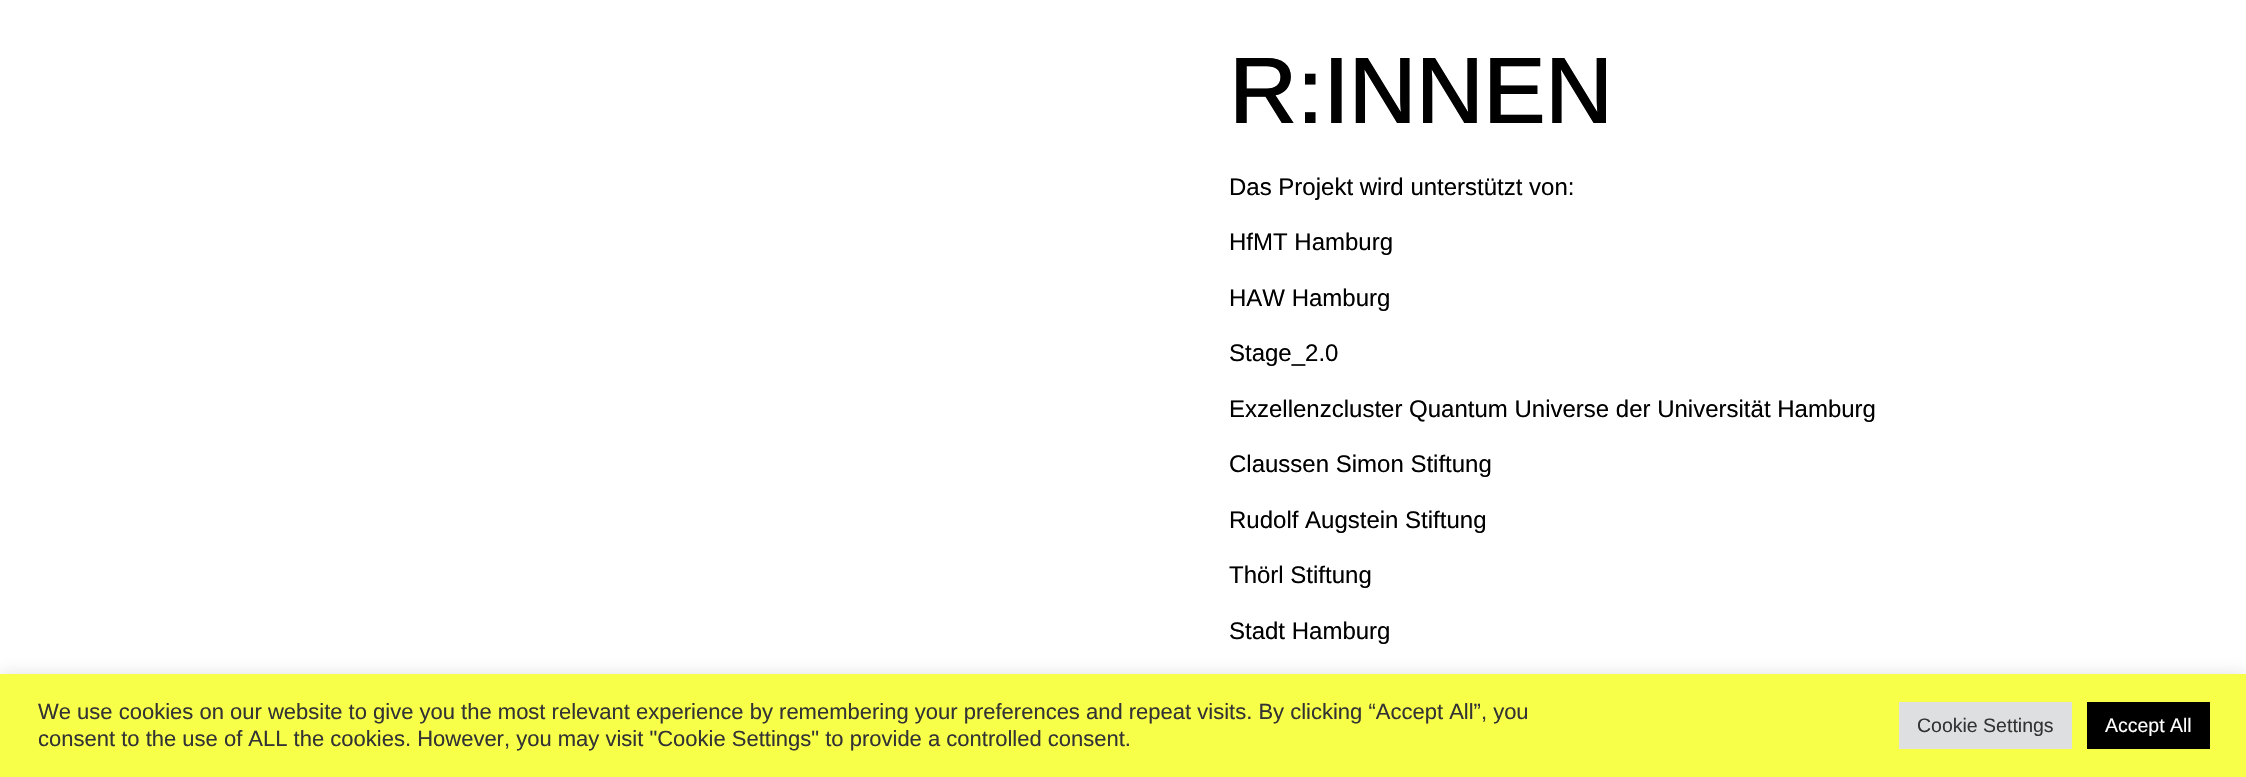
#include "include/core/SkBlurTypes.h"
#include "include/core/SkCanvas.h"
#include "include/core/SkData.h"
#include "include/core/SkFont.h"
#include "include/core/SkFontMgr.h"
#include "include/core/SkImage.h"
#include "include/core/SkMaskFilter.h"
#include "include/core/SkPaint.h"
#include "include/core/SkPathBuilder.h"
#include "include/core/SkTextBlob.h"
#include "include/effects/SkDashPathEffect.h"
#include "include/effects/SkGradientShader.h"
#include "include/utils/SkParsePath.h"

extern sk_sp<SkFontMgr> fontMgr;

void draw(SkCanvas* canvas) {
  SkPaint p;
  p.setAntiAlias(true);
  auto spacedText = [&](const char* s, float x, float y, const SkFont& font, const SkPaint& ink, float letter, float word) {
    std::vector<SkGlyphID> glyphs(font.countText(s, strlen(s), SkTextEncoding::kUTF8));
    std::vector<float> xs(glyphs.size());
    font.textToGlyphs(s, strlen(s), SkTextEncoding::kUTF8, glyphs);
    font.getXPos(glyphs, xs, x);
    float extra = 0;
    for (size_t i = 0; i < glyphs.size(); i++) {
      xs[i] += extra;
      extra += letter + word * (glyphs[i] == font.unicharToGlyph(' '));
    }
    canvas->drawTextBlob(SkTextBlob::MakeFromPosHGlyphs(glyphs, xs, y, font), 0, 0, ink);
  };
  canvas->clear(SK_ColorWHITE);
  p.setColor(SkColorSetARGB(77, 172, 171, 171));
  p.setMaskFilter(SkMaskFilter::MakeBlur(kNormal_SkBlurStyle, 7.5f));
  canvas->drawRect(SkRect::MakeLTRB(0, 672, 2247, 776), p);
  p.setMaskFilter(nullptr);
  p.setColor(SkColorSetRGB(248, 255, 73));
  canvas->drawRect(SkRect::MakeLTRB(0, 674, 2246, 777), p);
  p.setColor(SkColorSetRGB(222, 223, 224));
  canvas->drawRect(SkRect::MakeLTRB(1899, 702, 2072, 749), p);
  p.setColor(SK_ColorBLACK);
  canvas->drawRect(SkRect::MakeLTRB(2087, 702, 2210, 749), p);
  SkFont font1(fontMgr->matchFamilyStyle("Arimo", SkFontStyle(500, SkFontStyle::kNormal_Width, SkFontStyle::kUpright_Slant)), 94.5f);
  font1.setSubpixel(true);
  spacedText("R:INNEN", 1229, 123, font1, p, -1, 0);
  SkFont font2(fontMgr->matchFamilyStyle("Arimo", SkFontStyle::Normal()), 24);
  font2.setSubpixel(true);
  canvas->drawString("Das Projekt wird unterstützt von:", 1229, 195, font2, p);
  canvas->drawString("HfMT Hamburg", 1229, 250, font2, p);
  canvas->drawString("HAW Hamburg", 1229, 306, font2, p);
  canvas->drawString("Stage_2.0", 1229, 361, font2, p);
  canvas->drawString("Exzellenzcluster Quantum Universe der Universität Hamburg", 1229, 417, font2, p);
  canvas->drawString("Claussen Simon Stiftung", 1229, 472, font2, p);
  canvas->drawString("Rudolf Augstein Stiftung", 1229, 528, font2, p);
  canvas->drawString("Thörl Stiftung", 1229, 583, font2, p);
  canvas->drawString("Stadt Hamburg", 1229, 639, font2, p);
  SkFont font3(fontMgr->matchFamilyStyle("Arimo", SkFontStyle::Normal()), 22);
  font3.setSubpixel(true);
  p.setColor(SkColorSetRGB(51, 51, 51));
  canvas->drawString("We use cookies on our website to give you the most relevant experience by remembering your preferences and repeat visits. By clicking “Accept All”, you", 38, 719, font3, p);
  canvas->drawString("consent to the use of ALL the cookies. However, you may visit \"Cookie Settings\" to provide a controlled consent.", 38, 746, font3, p);
  SkFont font4(fontMgr->matchFamilyStyle("Arimo", SkFontStyle::Normal()), 19.5f);
  font4.setSubpixel(true);
  canvas->drawString("Cookie Settings", 1917, 732, font4, p);
  p.setColor(SK_ColorWHITE);
  canvas->drawString("Accept All", 2105, 732, font4, p);
}
